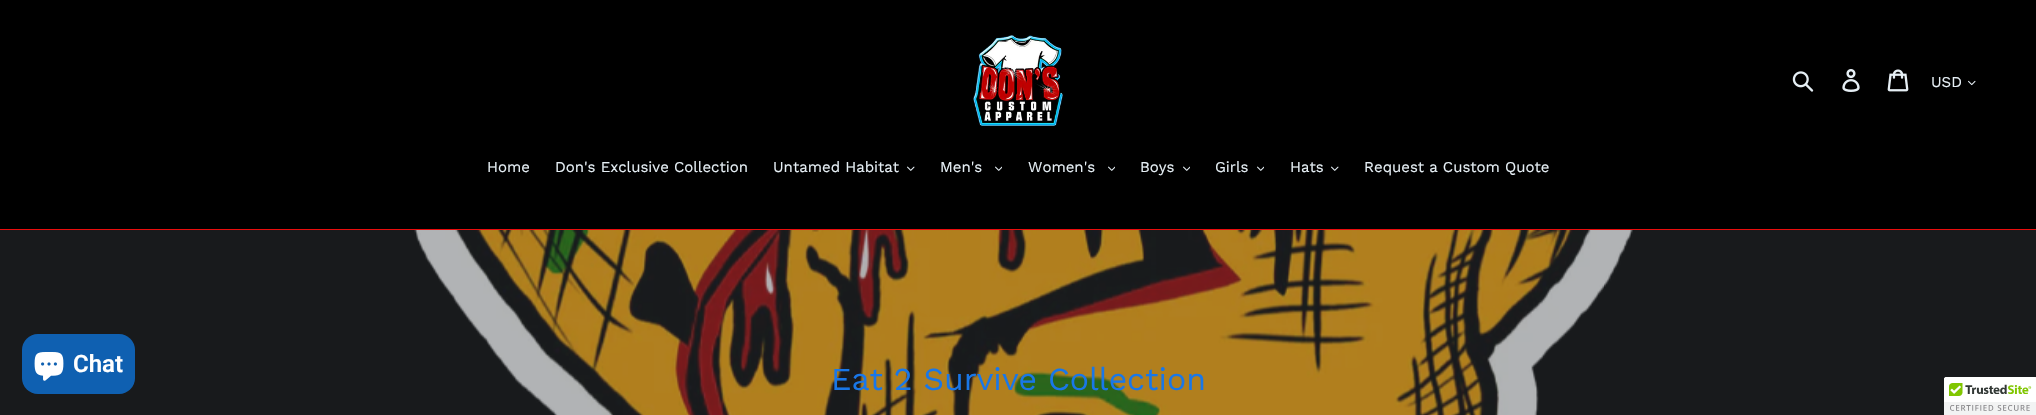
#include "include/core/SkBlurTypes.h"
#include "include/core/SkCanvas.h"
#include "include/core/SkData.h"
#include "include/core/SkFont.h"
#include "include/core/SkFontMgr.h"
#include "include/core/SkImage.h"
#include "include/core/SkMaskFilter.h"
#include "include/core/SkPaint.h"
#include "include/core/SkPathBuilder.h"
#include "include/core/SkTextBlob.h"
#include "include/effects/SkDashPathEffect.h"
#include "include/effects/SkGradientShader.h"
#include "include/utils/SkParsePath.h"

extern sk_sp<SkFontMgr> fontMgr;

void draw(SkCanvas* canvas) {
  SkPaint p;
  p.setAntiAlias(true);
  canvas->clear(SK_ColorBLACK);
  p.setColor(SkColorSetRGB(24, 26, 28));
  canvas->drawRect(SkRect::MakeLTRB(0, 230, 2036, 415), p);
  canvas->drawImageRect(SkImages::DeferredFromEncodedData(SkData::MakeFromFileName("images/1.png")), SkRect::MakeLTRB(972, 34, 1064, 126), SkSamplingOptions());
  canvas->drawImageRect(SkImages::DeferredFromEncodedData(SkData::MakeFromFileName("images/2.png")), SkRect::MakeLTRB(1792, 71, 1814, 92), SkSamplingOptions());
  canvas->drawImageRect(SkImages::DeferredFromEncodedData(SkData::MakeFromFileName("images/3.png")), SkRect::MakeLTRB(1842, 69, 1860, 92), SkSamplingOptions());
  canvas->drawImageRect(SkImages::DeferredFromEncodedData(SkData::MakeFromFileName("images/4.png")), SkRect::MakeLTRB(1887, 69, 1909, 92), SkSamplingOptions());
  canvas->drawImageRect(SkImages::DeferredFromEncodedData(SkData::MakeFromFileName("images/5.png")), SkRect::MakeLTRB(1968, 80, 1976, 86), SkSamplingOptions());
  p.setColor(SkColorSetRGB(233, 13, 13));
  canvas->drawRect(SkRect::MakeLTRB(0, 229, 2036, 230), p);
  canvas->drawImageRect(SkImages::DeferredFromEncodedData(SkData::MakeFromFileName("images/6.png")), SkRect::MakeLTRB(907, 166, 915, 171), SkSamplingOptions());
  canvas->drawImageRect(SkImages::DeferredFromEncodedData(SkData::MakeFromFileName("images/7.png")), SkRect::MakeLTRB(995, 166, 1002, 171), SkSamplingOptions());
  canvas->drawImageRect(SkImages::DeferredFromEncodedData(SkData::MakeFromFileName("images/7.png")), SkRect::MakeLTRB(1108, 166, 1115, 171), SkSamplingOptions());
  canvas->drawImageRect(SkImages::DeferredFromEncodedData(SkData::MakeFromFileName("images/7.png")), SkRect::MakeLTRB(1183, 166, 1190, 171), SkSamplingOptions());
  canvas->drawImageRect(SkImages::DeferredFromEncodedData(SkData::MakeFromFileName("images/7.png")), SkRect::MakeLTRB(1257, 166, 1264, 171), SkSamplingOptions());
  canvas->drawImageRect(SkImages::DeferredFromEncodedData(SkData::MakeFromFileName("images/6.png")), SkRect::MakeLTRB(1331, 166, 1339, 171), SkSamplingOptions());
  p.setColor(SkColorSetRGB(15, 96, 177));
  canvas->drawRoundRect(SkRect::MakeLTRB(22, 334, 135, 394), 16, 16, p);
  canvas->drawImageRect(SkImages::DeferredFromEncodedData(SkData::MakeFromFileName("images/8.png")), SkRect::MakeLTRB(34, 352, 64, 381), SkSamplingOptions());
  canvas->drawImageRect(SkImages::DeferredFromEncodedData(SkData::MakeFromFileName("images/9.png")), SkRect::MakeLTRB(414, 230, 1633, 415), SkSamplingOptions());
  p.setColor(SK_ColorWHITE);
  canvas->drawPath(SkPathBuilder().moveTo(1946, 377).lineTo(2036, 377).lineTo(2036, 415).lineTo(1944, 415).lineTo(1944, 379).cubicTo(1944, 378, 1945, 377, 1946, 377).close().detach(), p);
  canvas->drawImageRect(SkImages::DeferredFromEncodedData(SkData::MakeFromFileName("images/10.png")), SkRect::MakeLTRB(1944, 377, 2036, 415), SkSamplingOptions());
  SkFont font1(fontMgr->matchFamilyStyle("Work Sans", SkFontStyle::Normal()), 15);
  font1.setSubpixel(true);
  p.setColor(SkColorSetRGB(230, 239, 245));
  canvas->drawString("USD", 1931, 87, font1, p);
  canvas->drawString("Home", 487, 172, font1, p);
  canvas->drawString("Don's Exclusive Collection", 555, 172, font1, p);
  canvas->drawString("Untamed Habitat", 773, 172, font1, p);
  canvas->drawString("Men's", 940, 172, font1, p);
  canvas->drawString("Women's", 1028, 172, font1, p);
  canvas->drawString("Boys", 1140, 172, font1, p);
  canvas->drawString("Girls", 1215, 172, font1, p);
  canvas->drawString("Hats", 1290, 172, font1, p);
  canvas->drawString("Request a Custom Quote", 1364, 172, font1, p);
  SkFont font2(fontMgr->matchFamilyStyle("Roboto", SkFontStyle(600, SkFontStyle::kNormal_Width, SkFontStyle::kUpright_Slant)), 24);
  font2.setSubpixel(true);
  p.setColor(SK_ColorWHITE);
  canvas->drawString("Chat", 73, 372, font2, p);
  SkFont font3(fontMgr->matchFamilyStyle("Work Sans", SkFontStyle::Normal()), 32);
  font3.setSubpixel(true);
  p.setColor(SkColorSetRGB(25, 119, 232));
  canvas->drawString("Eat 2 Survive Collection", 831, 390, font3, p);
}
